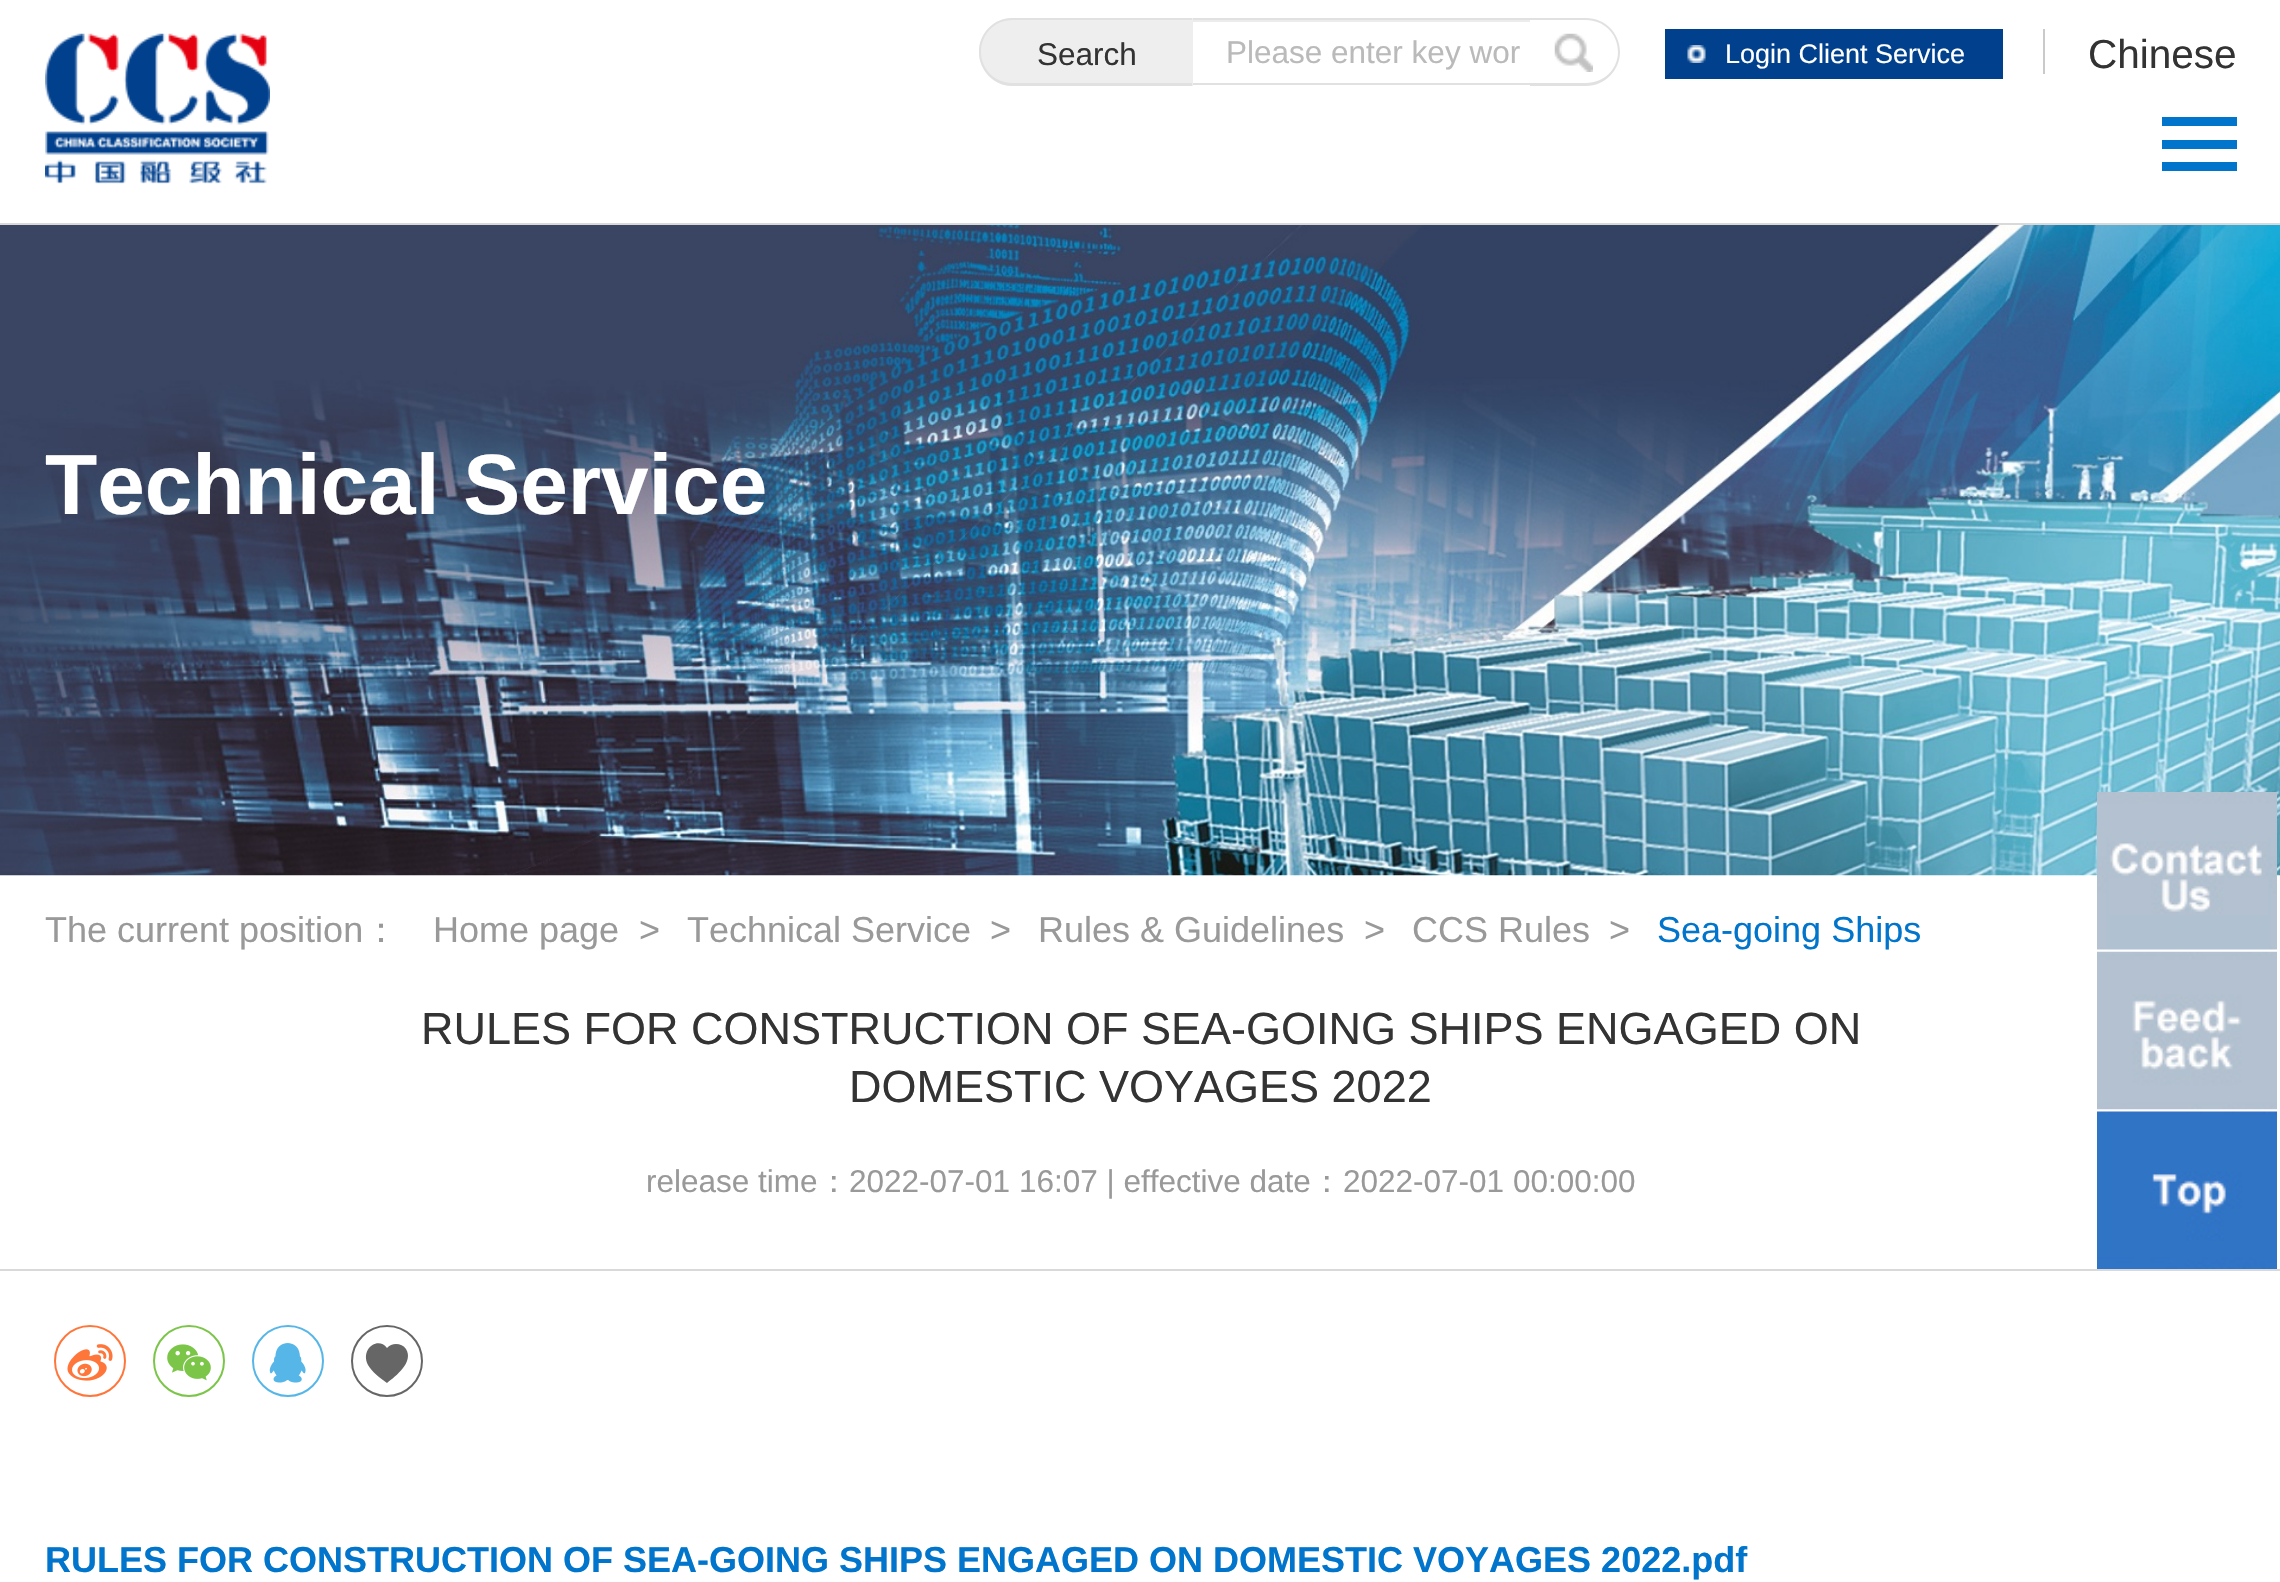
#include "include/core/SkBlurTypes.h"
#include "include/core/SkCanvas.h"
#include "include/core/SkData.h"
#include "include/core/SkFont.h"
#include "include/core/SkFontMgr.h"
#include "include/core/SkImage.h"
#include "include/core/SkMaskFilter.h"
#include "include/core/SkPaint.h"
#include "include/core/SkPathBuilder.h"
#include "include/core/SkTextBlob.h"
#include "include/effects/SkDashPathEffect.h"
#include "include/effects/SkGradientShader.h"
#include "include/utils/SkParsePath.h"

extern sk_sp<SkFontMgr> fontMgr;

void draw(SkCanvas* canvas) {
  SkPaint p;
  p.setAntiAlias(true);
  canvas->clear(SK_ColorWHITE);
  p.setColor(SkColorSetRGB(217, 217, 217));
  canvas->drawRect(SkRect::MakeLTRB(0, 223, 2280, 225), p);
  canvas->drawImageRect(SkImages::DeferredFromEncodedData(SkData::MakeFromFileName("images/1.png")), SkRect::MakeLTRB(45, 33, 270, 184), SkSamplingOptions());
  p.setColor(SkColorSetRGB(238, 238, 238));
  canvas->drawPath(SkPathBuilder().moveTo(1013, 18).lineTo(1193, 18).lineTo(1193, 86).lineTo(1013, 86).cubicTo(994, 86, 979, 71, 979, 52).cubicTo(979, 33, 994, 18, 1013, 18).close().detach(), p);
  p.setColor(SkColorSetRGB(225, 225, 225));
  canvas->drawPath(SkPathBuilder(SkPathFillType::kEvenOdd).moveTo(1012, 18).lineTo(1192, 18).lineTo(1192, 86).lineTo(1012, 86).cubicTo(994, 86, 979, 70, 979, 52).cubicTo(979, 33, 994, 18, 1012, 18).close().moveTo(1012, 20).lineTo(1192, 20).lineTo(1192, 83).lineTo(1012, 83).cubicTo(995, 83, 981, 69, 981, 52).cubicTo(981, 34, 995, 20, 1012, 20).close().detach(), p);
  p.setColor(SkColorSetRGB(236, 236, 236));
  canvas->drawRect(SkRect::MakeLTRB(1193, 20, 1530, 22), p);
  p.setColor(SkColorSetRGB(225, 225, 225));
  canvas->drawRect(SkRect::MakeLTRB(1193, 18, 1530, 20), p);
  canvas->drawRect(SkRect::MakeLTRB(1193, 83, 1530, 85), p);
  canvas->drawImageRect(SkImages::DeferredFromEncodedData(SkData::MakeFromFileName("images/2.png")), SkRect::MakeLTRB(1554, 33, 1593, 72), SkSamplingOptions());
  canvas->drawPath(SkPathBuilder(SkPathFillType::kEvenOdd).moveTo(1530, 18).lineTo(1586, 18).cubicTo(1605, 18, 1620, 33, 1620, 52).cubicTo(1620, 70, 1605, 86, 1586, 86).lineTo(1530, 86).close().moveTo(1530, 20).lineTo(1586, 20).cubicTo(1604, 20, 1618, 34, 1618, 52).cubicTo(1618, 69, 1604, 83, 1586, 83).lineTo(1530, 83).close().detach(), p);
  p.setColor(SkColorSetRGB(0, 64, 140));
  canvas->drawRect(SkRect::MakeLTRB(1665, 29, 2003, 79), p);
  canvas->drawImageRect(SkImages::DeferredFromEncodedData(SkData::MakeFromFileName("images/3.png")), SkRect::MakeLTRB(1687, 45, 1706, 63), SkSamplingOptions());
  p.setColor(SkColorSetRGB(202, 202, 202));
  canvas->drawRect(SkRect::MakeLTRB(2043, 29, 2045, 74), p);
  p.setColor(SkColorSetRGB(0, 117, 203));
  canvas->drawRect(SkRect::MakeLTRB(2162, 140, 2237, 149), p);
  canvas->drawRect(SkRect::MakeLTRB(2162, 117, 2237, 126), p);
  canvas->drawRect(SkRect::MakeLTRB(2162, 162, 2237, 171), p);
  canvas->drawImageRect(SkImages::DeferredFromEncodedData(SkData::MakeFromFileName("images/4.png")), SkRect::MakeLTRB(0, 225, 2280, 876), SkSamplingOptions());
  canvas->drawImageRect(SkImages::DeferredFromEncodedData(SkData::MakeFromFileName("images/5.png")), SkRect::MakeLTRB(2097, 792, 2277, 950), SkSamplingOptions());
  canvas->drawImageRect(SkImages::DeferredFromEncodedData(SkData::MakeFromFileName("images/6.png")), SkRect::MakeLTRB(2097, 951, 2277, 1110), SkSamplingOptions());
  canvas->drawImageRect(SkImages::DeferredFromEncodedData(SkData::MakeFromFileName("images/7.png")), SkRect::MakeLTRB(2097, 1111, 2277, 1269), SkSamplingOptions());
  p.setColor(SkColorSetRGB(217, 217, 217));
  canvas->drawRect(SkRect::MakeLTRB(0, 1269, 2280, 1271), p);
  p.setStyle(SkPaint::kStroke_Style);
  p.setStrokeWidth(2);
  p.setColor(SkColorSetRGB(255, 118, 59));
  canvas->drawCircle(90, 1361, 35, p);
  canvas->drawImageRect(SkImages::DeferredFromEncodedData(SkData::MakeFromFileName("images/8.png")), SkRect::MakeLTRB(67, 1344, 113, 1381), SkSamplingOptions());
  p.setColor(SkColorSetRGB(123, 197, 73));
  canvas->drawCircle(189, 1361, 35, p);
  canvas->drawImageRect(SkImages::DeferredFromEncodedData(SkData::MakeFromFileName("images/9.png")), SkRect::MakeLTRB(167, 1344, 211, 1381), SkSamplingOptions());
  p.setColor(SkColorSetRGB(86, 182, 231));
  canvas->drawCircle(288, 1361, 35, p);
  canvas->drawImageRect(SkImages::DeferredFromEncodedData(SkData::MakeFromFileName("images/10.png")), SkRect::MakeLTRB(269, 1343, 306, 1383), SkSamplingOptions());
  p.setColor(SkColorSetRGB(102, 102, 102));
  canvas->drawCircle(387, 1361, 35, p);
  p.setStyle(SkPaint::kFill_Style);
  canvas->drawPath(SkPathBuilder().moveTo(406, 1349).cubicTo(402, 1343, 392, 1342, 387, 1348).cubicTo(378, 1336, 360, 1349, 368, 1365).cubicTo(372, 1372, 380, 1378, 387, 1383).cubicTo(396, 1376, 414, 1362, 406, 1349).close().detach(), p);
  SkFont font1(fontMgr->matchFamilyStyle("Liberation Sans", SkFontStyle::Normal()), 31.5f);
  font1.setSubpixel(true);
  p.setColor(SkColorSetRGB(51, 51, 51));
  canvas->drawString("Search", 1037, 65, font1, p);
  p.setColor(SkColorSetRGB(186, 186, 186));
  canvas->drawString("Please enter key wor", 1226, 63, font1, p);
  SkFont font2(fontMgr->matchFamilyStyle("Liberation Sans", SkFontStyle::Normal()), 27);
  font2.setSubpixel(true);
  p.setColor(SK_ColorWHITE);
  canvas->drawString("Login Client Service", 1725, 63, font2, p);
  SkFont font3(fontMgr->matchFamilyStyle("Liberation Sans", SkFontStyle::Normal()), 40.5f);
  font3.setSubpixel(true);
  p.setColor(SkColorSetRGB(51, 51, 51));
  canvas->drawString("Chinese", 2088, 68, font3, p);
  SkFont font4(fontMgr->matchFamilyStyle("Liberation Sans", SkFontStyle::Bold()), 85.5f);
  font4.setSubpixel(true);
  p.setColor(SK_ColorWHITE);
  canvas->drawString("Technical Service", 45, 514, font4, p);
  SkFont font5(fontMgr->matchFamilyStyle("Liberation Sans", SkFontStyle::Normal()), 36);
  font5.setSubpixel(true);
  p.setColor(SkColorSetRGB(153, 153, 153));
  canvas->drawString("The current position", 45, 942, font5, p);
  SkFont font6(fontMgr->matchFamilyStyle("WenQuanYi Zen Hei", SkFontStyle(500, SkFontStyle::kNormal_Width, SkFontStyle::kUpright_Slant)), 36);
  font6.setSubpixel(true);
  canvas->drawString("：", 363, 942, font6, p);
  canvas->drawString("Home page", 433, 942, font5, p);
  canvas->drawString(">", 639, 942, font5, p);
  canvas->drawString("Technical Service", 687, 942, font5, p);
  canvas->drawString(">", 990, 942, font5, p);
  canvas->drawString("Rules & Guidelines", 1038, 942, font5, p);
  canvas->drawString(">", 1364, 942, font5, p);
  canvas->drawString("CCS Rules", 1412, 942, font5, p);
  canvas->drawString(">", 1609, 942, font5, p);
  p.setColor(SkColorSetRGB(0, 117, 203));
  canvas->drawString("Sea-going Ships", 1657, 942, font5, p);
  SkFont font7(fontMgr->matchFamilyStyle("Liberation Sans", SkFontStyle::Normal()), 45);
  font7.setSubpixel(true);
  p.setColor(SkColorSetRGB(51, 51, 51));
  canvas->drawString("RULES FOR CONSTRUCTION OF SEA-GOING SHIPS ENGAGED ON", 421, 1044, font7, p);
  canvas->drawString("DOMESTIC VOYAGES 2022", 849, 1102, font7, p);
  p.setColor(SkColorSetRGB(153, 153, 153));
  canvas->drawString("release time", 646, 1192, font1, p);
  SkFont font8(fontMgr->matchFamilyStyle("WenQuanYi Zen Hei", SkFontStyle(500, SkFontStyle::kNormal_Width, SkFontStyle::kUpright_Slant)), 31.5f);
  font8.setSubpixel(true);
  canvas->drawString("：", 818, 1192, font8, p);
  canvas->drawString("2022-07-01 16:07 | effective date", 849, 1192, font1, p);
  canvas->drawString("：", 1311, 1192, font8, p);
  canvas->drawString("2022-07-01 00:00:00", 1343, 1192, font1, p);
  SkFont font9(fontMgr->matchFamilyStyle("Liberation Sans", SkFontStyle::Bold()), 36);
  font9.setSubpixel(true);
  p.setColor(SkColorSetRGB(0, 117, 203));
  canvas->drawString("RULES FOR CONSTRUCTION OF SEA-GOING SHIPS ENGAGED ON DOMESTIC VOYAGES 2022.pdf", 45, 1572, font9, p);
}
